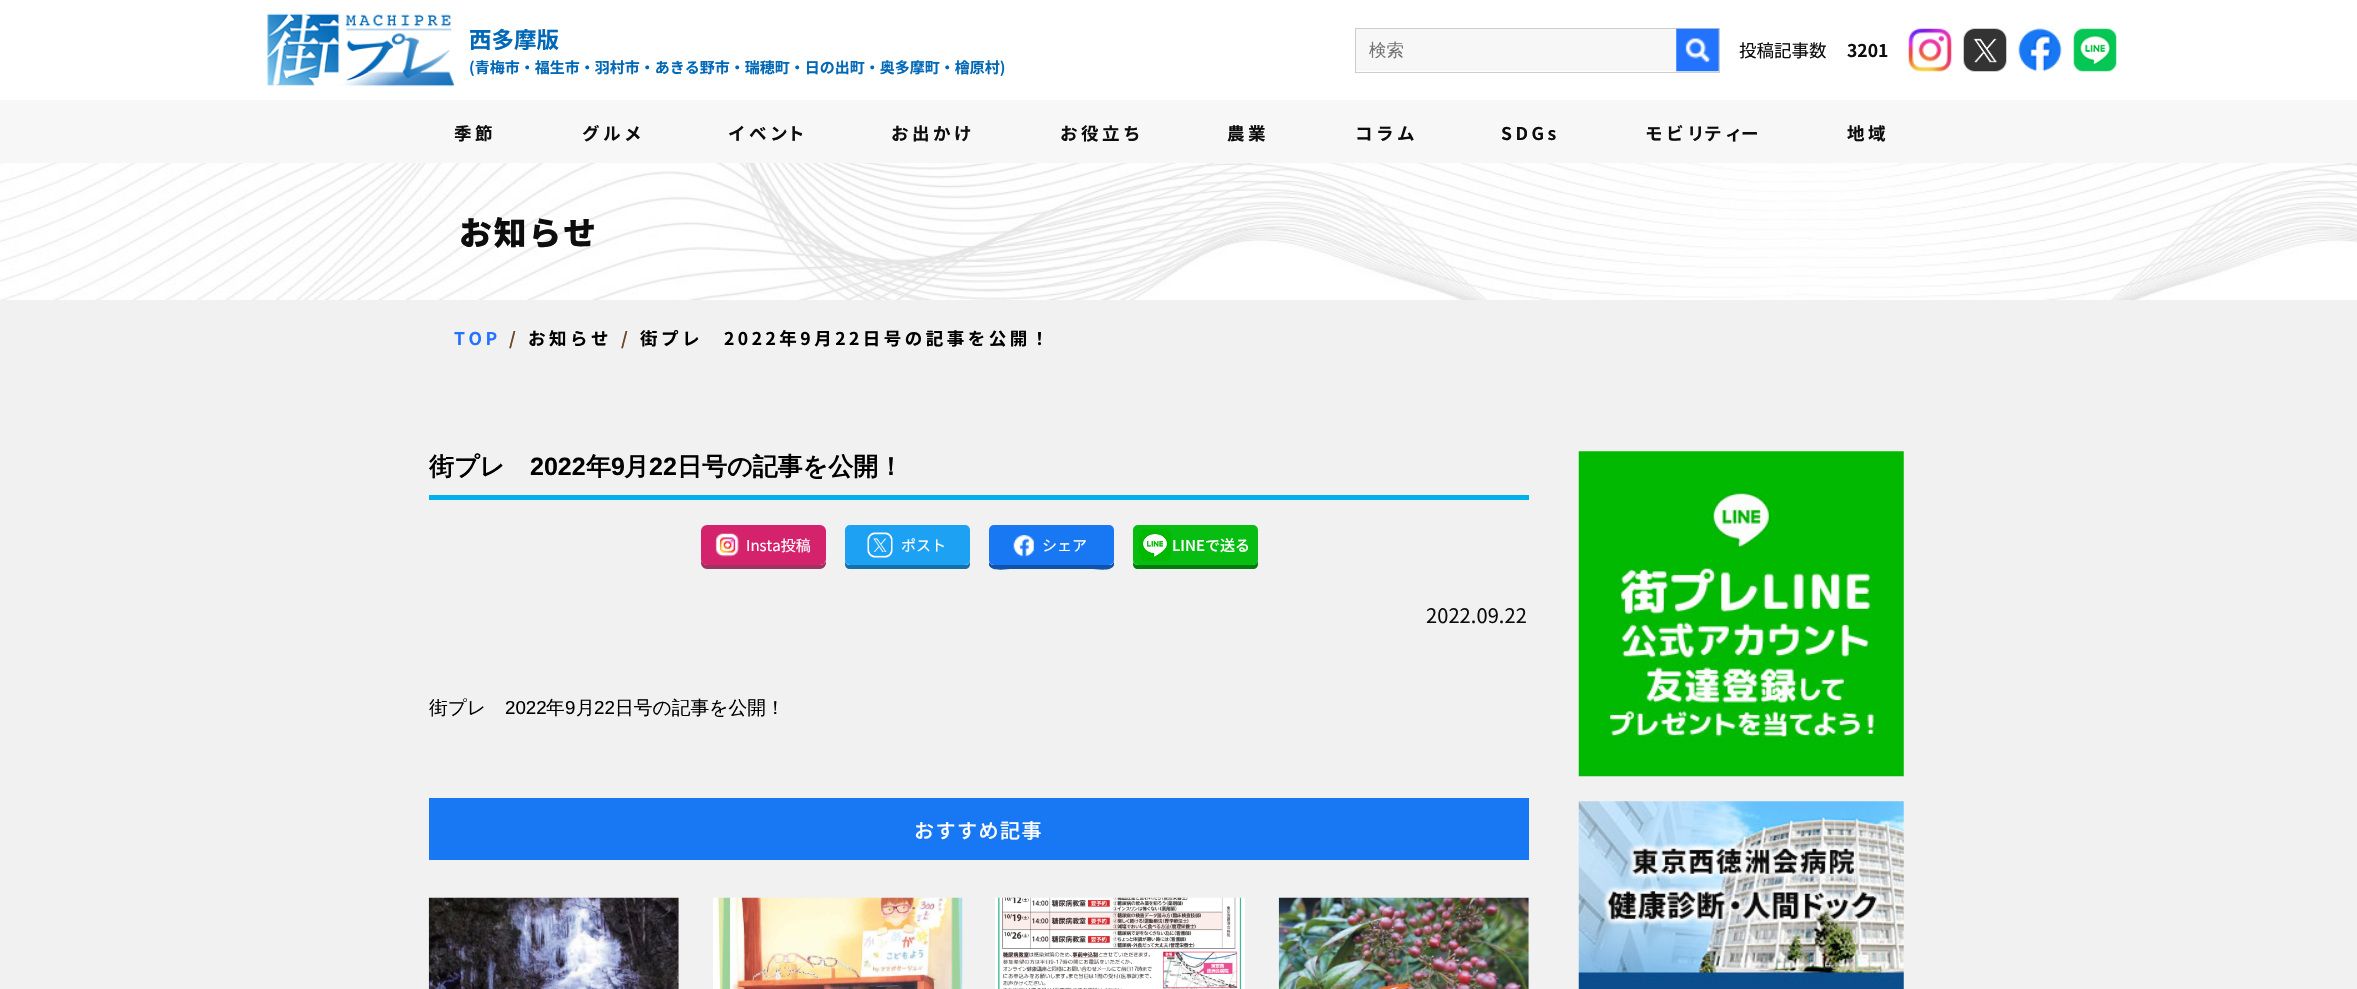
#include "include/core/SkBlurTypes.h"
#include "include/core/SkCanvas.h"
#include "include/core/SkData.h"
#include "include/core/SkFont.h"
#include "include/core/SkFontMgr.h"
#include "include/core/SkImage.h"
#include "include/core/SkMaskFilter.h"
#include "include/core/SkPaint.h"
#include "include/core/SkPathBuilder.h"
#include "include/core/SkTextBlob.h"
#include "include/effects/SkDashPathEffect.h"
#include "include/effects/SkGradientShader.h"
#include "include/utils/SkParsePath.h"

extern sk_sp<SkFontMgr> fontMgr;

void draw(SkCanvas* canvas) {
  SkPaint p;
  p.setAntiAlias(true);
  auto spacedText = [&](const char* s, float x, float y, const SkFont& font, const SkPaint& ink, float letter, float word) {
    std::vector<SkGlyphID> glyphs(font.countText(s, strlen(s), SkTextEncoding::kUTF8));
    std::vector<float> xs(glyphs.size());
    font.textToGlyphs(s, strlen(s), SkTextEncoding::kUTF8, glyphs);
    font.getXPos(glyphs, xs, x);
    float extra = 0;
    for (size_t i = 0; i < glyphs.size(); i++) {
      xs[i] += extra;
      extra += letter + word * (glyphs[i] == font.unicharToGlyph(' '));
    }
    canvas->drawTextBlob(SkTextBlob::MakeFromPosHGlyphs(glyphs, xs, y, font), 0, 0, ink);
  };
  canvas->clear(SK_ColorWHITE);
  canvas->drawImageRect(SkImages::DeferredFromEncodedData(SkData::MakeFromFileName("images/1.png")), SkRect::MakeLTRB(267, 13, 454, 87), SkSamplingOptions());
  p.setStyle(SkPaint::kStroke_Style);
  p.setStrokeWidth(1);
  p.setColor(SkColorSetRGB(204, 204, 204));
  canvas->drawRect(SkRect::MakeLTRB(1355.5f, 28.5f, 1719.5f, 72.5f), p);
  p.setStyle(SkPaint::kFill_Style);
  p.setColor(SkColorSetRGB(247, 247, 247));
  canvas->drawRect(SkRect::MakeLTRB(1356, 29, 1676, 71), p);
  canvas->drawImageRect(SkImages::DeferredFromEncodedData(SkData::MakeFromFileName("images/2.png")), SkRect::MakeLTRB(1676, 28, 1719, 72), SkSamplingOptions());
  canvas->drawImageRect(SkImages::DeferredFromEncodedData(SkData::MakeFromFileName("images/3.png")), SkRect::MakeLTRB(1908, 28, 1952, 72), SkSamplingOptions());
  canvas->drawImageRect(SkImages::DeferredFromEncodedData(SkData::MakeFromFileName("images/4.png")), SkRect::MakeLTRB(1963, 28, 2007, 72), SkSamplingOptions());
  canvas->drawImageRect(SkImages::DeferredFromEncodedData(SkData::MakeFromFileName("images/5.png")), SkRect::MakeLTRB(2018, 28, 2062, 72), SkSamplingOptions());
  canvas->drawImageRect(SkImages::DeferredFromEncodedData(SkData::MakeFromFileName("images/6.png")), SkRect::MakeLTRB(2073, 28, 2117, 72), SkSamplingOptions());
  canvas->drawRect(SkRect::MakeLTRB(0, 100, 2357, 163), p);
  p.setColor(SkColorSetRGB(241, 241, 241));
  canvas->drawRect(SkRect::MakeLTRB(0, 300, 2357, 989), p);
  canvas->drawImageRect(SkImages::DeferredFromEncodedData(SkData::MakeFromFileName("images/7.png")), SkRect::MakeLTRB(0, 163, 2357, 300), SkSamplingOptions());
  p.setColor(SkColorSetRGB(0, 176, 234));
  canvas->drawRect(SkRect::MakeLTRB(429, 495, 1529, 500), p);
  p.setColor(SkColorSetRGB(155, 52, 95));
  canvas->drawPath(SkPathBuilder().moveTo(701, 533).lineTo(701, 563).cubicTo(701, 566, 704, 569, 707, 569).lineTo(820, 569).cubicTo(823, 569, 826, 566, 826, 563).lineTo(826, 561).cubicTo(825, 563, 823, 565, 820, 565).lineTo(708, 565).cubicTo(704, 565, 701, 562, 701, 559).close().detach(), p);
  p.setColor(SkColorSetRGB(212, 34, 109));
  canvas->drawRoundRect(SkRect::MakeLTRB(701, 525, 826, 565), 6, 6, p);
  canvas->drawImageRect(SkImages::DeferredFromEncodedData(SkData::MakeFromFileName("images/8.png")), SkRect::MakeLTRB(715, 533, 739, 557), SkSamplingOptions());
  p.setColor(SkColorSetRGB(20, 112, 169));
  canvas->drawPath(SkPathBuilder().moveTo(845, 560).lineTo(845, 564).cubicTo(845, 567, 847, 569, 850, 569).lineTo(965, 569).cubicTo(968, 569, 970, 567, 970, 564).lineTo(970, 560).cubicTo(970, 563, 968, 565, 965, 565).lineTo(850, 565).cubicTo(847, 565, 845, 563, 845, 560).close().detach(), p);
  p.setColor(SkColorSetRGB(29, 161, 242));
  canvas->drawRoundRect(SkRect::MakeLTRB(845, 525, 970, 565), 5, 5, p);
  canvas->drawImageRect(SkImages::DeferredFromEncodedData(SkData::MakeFromFileName("images/9.png")), SkRect::MakeLTRB(867, 532, 893, 558), SkSamplingOptions());
  p.setColor(SkColorSetRGB(17, 83, 169));
  canvas->drawPath(SkPathBuilder().moveTo(989, 562).lineTo(989, 565).cubicTo(991, 572, 1006, 569, 1013, 569).lineTo(1090, 569).cubicTo(1097, 569, 1112, 572, 1114, 565).lineTo(1114, 532).lineTo(1114, 560).cubicTo(1114, 563, 1112, 565, 1109, 565).lineTo(994, 565).cubicTo(992, 565, 990, 564, 989, 562).close().detach(), p);
  p.setColor(SkColorSetRGB(24, 119, 242));
  canvas->drawRoundRect(SkRect::MakeLTRB(989, 525, 1114, 565), 5, 5, p);
  canvas->drawImageRect(SkImages::DeferredFromEncodedData(SkData::MakeFromFileName("images/10.png")), SkRect::MakeLTRB(1013, 535, 1034, 557), SkSamplingOptions());
  p.setColor(SkColorSetRGB(5, 123, 11));
  canvas->drawPath(SkPathBuilder().moveTo(1133, 562).lineTo(1133, 564).cubicTo(1133, 567, 1135, 569, 1138, 569).lineTo(1253, 569).cubicTo(1256, 569, 1258, 567, 1258, 564).lineTo(1258, 534).lineTo(1258, 532).lineTo(1258, 560).cubicTo(1258, 563, 1255, 565, 1252, 565).lineTo(1138, 565).cubicTo(1136, 565, 1134, 564, 1133, 562).close().detach(), p);
  p.setColor(SkColorSetRGB(8, 189, 17));
  canvas->drawRoundRect(SkRect::MakeLTRB(1133, 525, 1258, 565), 5, 5, p);
  canvas->drawImageRect(SkImages::DeferredFromEncodedData(SkData::MakeFromFileName("images/11.png")), SkRect::MakeLTRB(1138, 529, 1172, 561), SkSamplingOptions());
  p.setColor(SkColorSetRGB(24, 119, 242));
  canvas->drawRect(SkRect::MakeLTRB(429, 798, 1529, 860), p);
  canvas->drawImageRect(SkImages::DeferredFromEncodedData(SkData::MakeFromFileName("images/12.png")), SkRect::MakeLTRB(428, 897, 679, 989), SkSamplingOptions());
  canvas->drawImageRect(SkImages::DeferredFromEncodedData(SkData::MakeFromFileName("images/13.png")), SkRect::MakeLTRB(713, 897, 963, 989), SkSamplingOptions());
  canvas->drawImageRect(SkImages::DeferredFromEncodedData(SkData::MakeFromFileName("images/14.png")), SkRect::MakeLTRB(995, 897, 1245, 989), SkSamplingOptions());
  canvas->drawImageRect(SkImages::DeferredFromEncodedData(SkData::MakeFromFileName("images/15.png")), SkRect::MakeLTRB(1278, 897, 1529, 989), SkSamplingOptions());
  canvas->drawImageRect(SkImages::DeferredFromEncodedData(SkData::MakeFromFileName("images/16.png")), SkRect::MakeLTRB(1578, 451, 1904, 777), SkSamplingOptions());
  canvas->drawImageRect(SkImages::DeferredFromEncodedData(SkData::MakeFromFileName("images/17.png")), SkRect::MakeLTRB(1578, 801, 1904, 989), SkSamplingOptions());
  SkFont font1(fontMgr->matchFamilyStyle("Noto Sans JP", SkFontStyle::Bold()), 22.5f);
  font1.setSubpixel(true);
  p.setColor(SkColorSetRGB(0, 104, 182));
  canvas->drawString("西多摩版", 469, 48, font1, p);
  SkFont font2(fontMgr->matchFamilyStyle("Noto Sans JP", SkFontStyle::Bold()), 15);
  font2.setSubpixel(true);
  canvas->drawString("(青梅市・福生市・羽村市・あきる野市・瑞穂町・日の出町・奥多摩町・檜原村)", 469, 73, font2, p);
  SkFont font3(fontMgr->matchFamilyStyle("WenQuanYi Zen Hei", SkFontStyle(500, SkFontStyle::kNormal_Width, SkFontStyle::kUpright_Slant)), 17.5f);
  font3.setSubpixel(true);
  p.setColor(SkColorSetRGB(117, 117, 117));
  canvas->drawString("検索", 1369, 56, font3, p);
  SkFont font4(fontMgr->matchFamilyStyle("Noto Sans JP", SkFontStyle::Normal()), 17.5f);
  font4.setSubpixel(true);
  p.setColor(SkColorSetRGB(13, 13, 13));
  canvas->drawString("投稿記事数", 1739, 57, font4, p);
  SkFont font5(fontMgr->matchFamilyStyle("Noto Sans JP", SkFontStyle::Bold()), 17.5f);
  font5.setSubpixel(true);
  canvas->drawString("3201", 1847, 57, font5, p);
  spacedText("季節", 454, 140, font5, p, 3.5f, 0);
  spacedText("グルメ", 582, 140, font5, p, 3.5f, 0);
  spacedText("イベン", 728, 140, font5, p, 3.5f, 0);
  spacedText("ト", 787, 140, font5, p, 3.5f, 0);
  spacedText("お出かけ", 891, 140, font5, p, 3.5f, 0);
  spacedText("お役立ち", 1060, 140, font5, p, 3.5f, 0);
  spacedText("農業", 1227, 140, font5, p, 3.5f, 0);
  spacedText("コラム", 1355, 140, font5, p, 3.5f, 0);
  spacedText("SDGs", 1501, 140, font5, p, 3.5f, 0);
  spacedText("モビリ", 1645, 140, font5, p, 3.5f, 0);
  spacedText("ティ", 1704, 140, font5, p, 3.5f, 0);
  spacedText("ー", 1741, 140, font5, p, 3.5f, 0);
  spacedText("地域", 1847, 140, font5, p, 3.5f, 0);
  SkFont font6(fontMgr->matchFamilyStyle("Noto Sans JP", SkFontStyle(900, SkFontStyle::kNormal_Width, SkFontStyle::kUpright_Slant)), 32.75f);
  font6.setSubpixel(true);
  spacedText("お知らせ", 459, 245, font6, p, 2, 0);
  p.setColor(SkColorSetRGB(35, 115, 255));
  spacedText("TOP", 454, 345, font5, p, 3.5f, 0);
  p.setColor(SkColorSetRGB(102, 70, 32));
  spacedText("/", 509, 345, font5, p, 3.5f, 0);
  p.setColor(SK_ColorBLACK);
  spacedText("お知らせ", 528, 345, font5, p, 3.5f, 0);
  p.setColor(SkColorSetRGB(102, 70, 32));
  spacedText("/", 621, 345, font5, p, 3.5f, 0);
  p.setColor(SK_ColorBLACK);
  spacedText("街プレ　2022年9月22日号の記事を公開！", 640, 345, font5, p, 3.5f, 0);
  SkFont font7(fontMgr->matchFamilyStyle("WenQuanYi Zen Hei", SkFontStyle::Bold()), 25);
  font7.setSubpixel(true);
  canvas->drawString("街プレ", 429, 475, font7, p);
  SkFont font8(fontMgr->matchFamilyStyle("Liberation Sans", SkFontStyle::Bold()), 25);
  font8.setSubpixel(true);
  canvas->drawString("2022", 530, 475, font8, p);
  canvas->drawString("年", 586, 475, font7, p);
  canvas->drawString("9", 611, 475, font8, p);
  canvas->drawString("月", 624, 475, font7, p);
  canvas->drawString("22", 649, 475, font8, p);
  canvas->drawString("日号の記事を公開！", 677, 475, font7, p);
  SkFont font9(fontMgr->matchFamilyStyle("Noto Sans JP", SkFontStyle::Normal()), 15);
  font9.setSubpixel(true);
  p.setColor(SK_ColorWHITE);
  canvas->drawString("Insta投稿", 746, 551, font9, p);
  canvas->drawString("ポスト", 901, 551, font9, p);
  canvas->drawString("シェア", 1042, 551, font9, p);
  SkFont font10(fontMgr->matchFamilyStyle("Noto Sans JP", SkFontStyle(500, SkFontStyle::kNormal_Width, SkFontStyle::kUpright_Slant)), 15);
  font10.setSubpixel(true);
  canvas->drawString("LINEで送る", 1172, 551, font10, p);
  SkFont font11(fontMgr->matchFamilyStyle("Noto Sans JP", SkFontStyle::Normal()), 20);
  font11.setSubpixel(true);
  p.setColor(SkColorSetRGB(13, 13, 13));
  spacedText("2022.09.22", 1426, 623, font11, p, 0.1f, 0);
  SkFont font12(fontMgr->matchFamilyStyle("WenQuanYi Zen Hei", SkFontStyle(500, SkFontStyle::kNormal_Width, SkFontStyle::kUpright_Slant)), 18.75f);
  font12.setSubpixel(true);
  p.setColor(SK_ColorBLACK);
  canvas->drawString("街プレ", 429, 714, font12, p);
  SkFont font13(fontMgr->matchFamilyStyle("Liberation Sans", SkFontStyle::Normal()), 18.75f);
  font13.setSubpixel(true);
  canvas->drawString("2022", 505, 714, font13, p);
  canvas->drawString("年", 546, 714, font12, p);
  canvas->drawString("9", 565, 714, font13, p);
  canvas->drawString("月", 576, 714, font12, p);
  canvas->drawString("22", 594, 714, font13, p);
  canvas->drawString("日号の記事を公開！", 615, 714, font12, p);
  SkFont font14(fontMgr->matchFamilyStyle("Noto Sans JP", SkFontStyle(500, SkFontStyle::kNormal_Width, SkFontStyle::kUpright_Slant)), 20);
  font14.setSubpixel(true);
  p.setColor(SK_ColorWHITE);
  spacedText("おすすめ記事", 914, 838, font14, p, 1.5f, 0);
}
